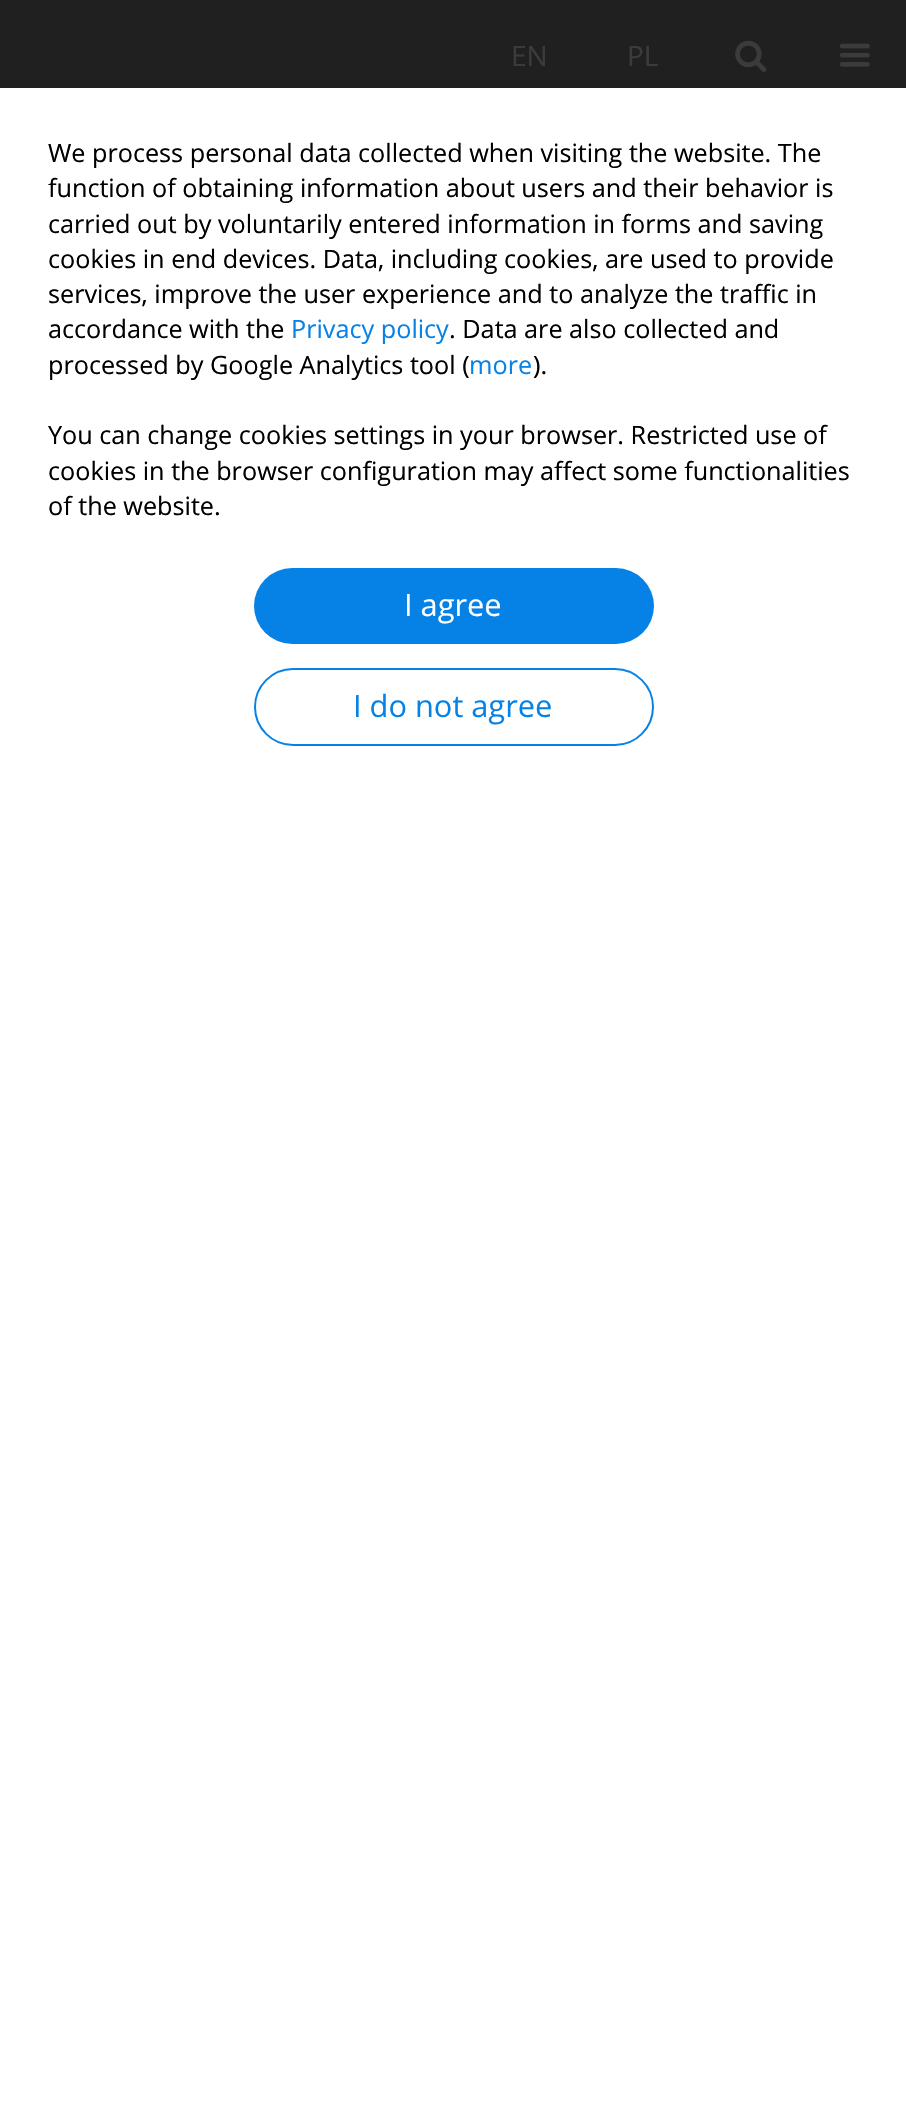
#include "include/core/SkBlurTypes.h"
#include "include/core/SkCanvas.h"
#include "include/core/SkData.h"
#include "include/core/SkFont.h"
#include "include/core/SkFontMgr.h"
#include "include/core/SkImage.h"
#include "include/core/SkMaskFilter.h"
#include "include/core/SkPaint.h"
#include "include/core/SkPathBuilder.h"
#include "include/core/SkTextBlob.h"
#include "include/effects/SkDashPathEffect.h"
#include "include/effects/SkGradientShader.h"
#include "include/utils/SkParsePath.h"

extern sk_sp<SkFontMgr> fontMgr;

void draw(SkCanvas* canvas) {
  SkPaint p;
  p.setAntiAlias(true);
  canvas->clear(SkColorSetRGB(32, 32, 32));
  canvas->drawImageRect(SkImages::DeferredFromEncodedData(SkData::MakeFromFileName("images/1.png")), SkRect::MakeLTRB(735, 40, 767, 72), SkSamplingOptions());
  canvas->drawImageRect(SkImages::DeferredFromEncodedData(SkData::MakeFromFileName("images/2.png")), SkRect::MakeLTRB(839, 43, 870, 67), SkSamplingOptions());
  p.setColor(SK_ColorWHITE);
  canvas->drawRect(SkRect::MakeLTRB(0, 88, 906, 2113), p);
  p.setColor(SkColorSetRGB(6, 130, 231));
  canvas->drawRoundRect(SkRect::MakeLTRB(254, 568, 654, 644), 38, 38, p);
  p.setStyle(SkPaint::kStroke_Style);
  p.setStrokeWidth(2);
  canvas->drawRoundRect(SkRect::MakeLTRB(255, 669, 653, 745), 38, 38, p);
  SkFont font1(fontMgr->matchFamilyStyle("Open Sans", SkFontStyle::Normal()), 28);
  font1.setSubpixel(true);
  p.setStyle(SkPaint::kFill_Style);
  p.setColor(SkColorSetRGB(59, 59, 59));
  canvas->drawString("EN", 511, 66, font1, p);
  canvas->drawString("PL", 627, 66, font1, p);
  SkFont font2(fontMgr->matchFamilyStyle("Open Sans", SkFontStyle::Normal()), 25.2f);
  font2.setSubpixel(true);
  p.setColor(SK_ColorBLACK);
  canvas->drawString("We process personal data collected when visiting the website. The", 48, 162, font2, p);
  canvas->drawString("function of obtaining information about users and their behavior is", 48, 197, font2, p);
  canvas->drawString("carried out by voluntarily entered information in forms and saving", 48, 233, font2, p);
  canvas->drawString("cookies in end devices. Data, including cookies, are used to provide", 48, 268, font2, p);
  canvas->drawString("services, improve the user experience and to analyze the traffic in", 48, 303, font2, p);
  canvas->drawString("accordance with the", 48, 338, font2, p);
  p.setColor(SkColorSetRGB(6, 130, 231));
  canvas->drawString("Privacy policy", 291, 338, font2, p);
  p.setColor(SK_ColorBLACK);
  canvas->drawString(". Data are also collected and", 449, 338, font2, p);
  canvas->drawString("processed by Google Analytics tool (", 48, 374, font2, p);
  p.setColor(SkColorSetRGB(6, 130, 231));
  canvas->drawString("more", 469, 374, font2, p);
  p.setColor(SK_ColorBLACK);
  canvas->drawString(").", 533, 374, font2, p);
  canvas->drawString("You can change cookies settings in your browser. Restricted use of", 48, 444, font2, p);
  canvas->drawString("cookies in the browser configuration may affect some functionalities", 48, 480, font2, p);
  canvas->drawString("of the website.", 48, 515, font2, p);
  SkFont font3(fontMgr->matchFamilyStyle("Open Sans", SkFontStyle::Normal()), 30.75f);
  font3.setSubpixel(true);
  p.setColor(SK_ColorWHITE);
  canvas->drawString("I agree", 404, 616, font3, p);
  p.setColor(SkColorSetRGB(6, 130, 231));
  canvas->drawString("I do not agree", 353, 717, font3, p);
}
